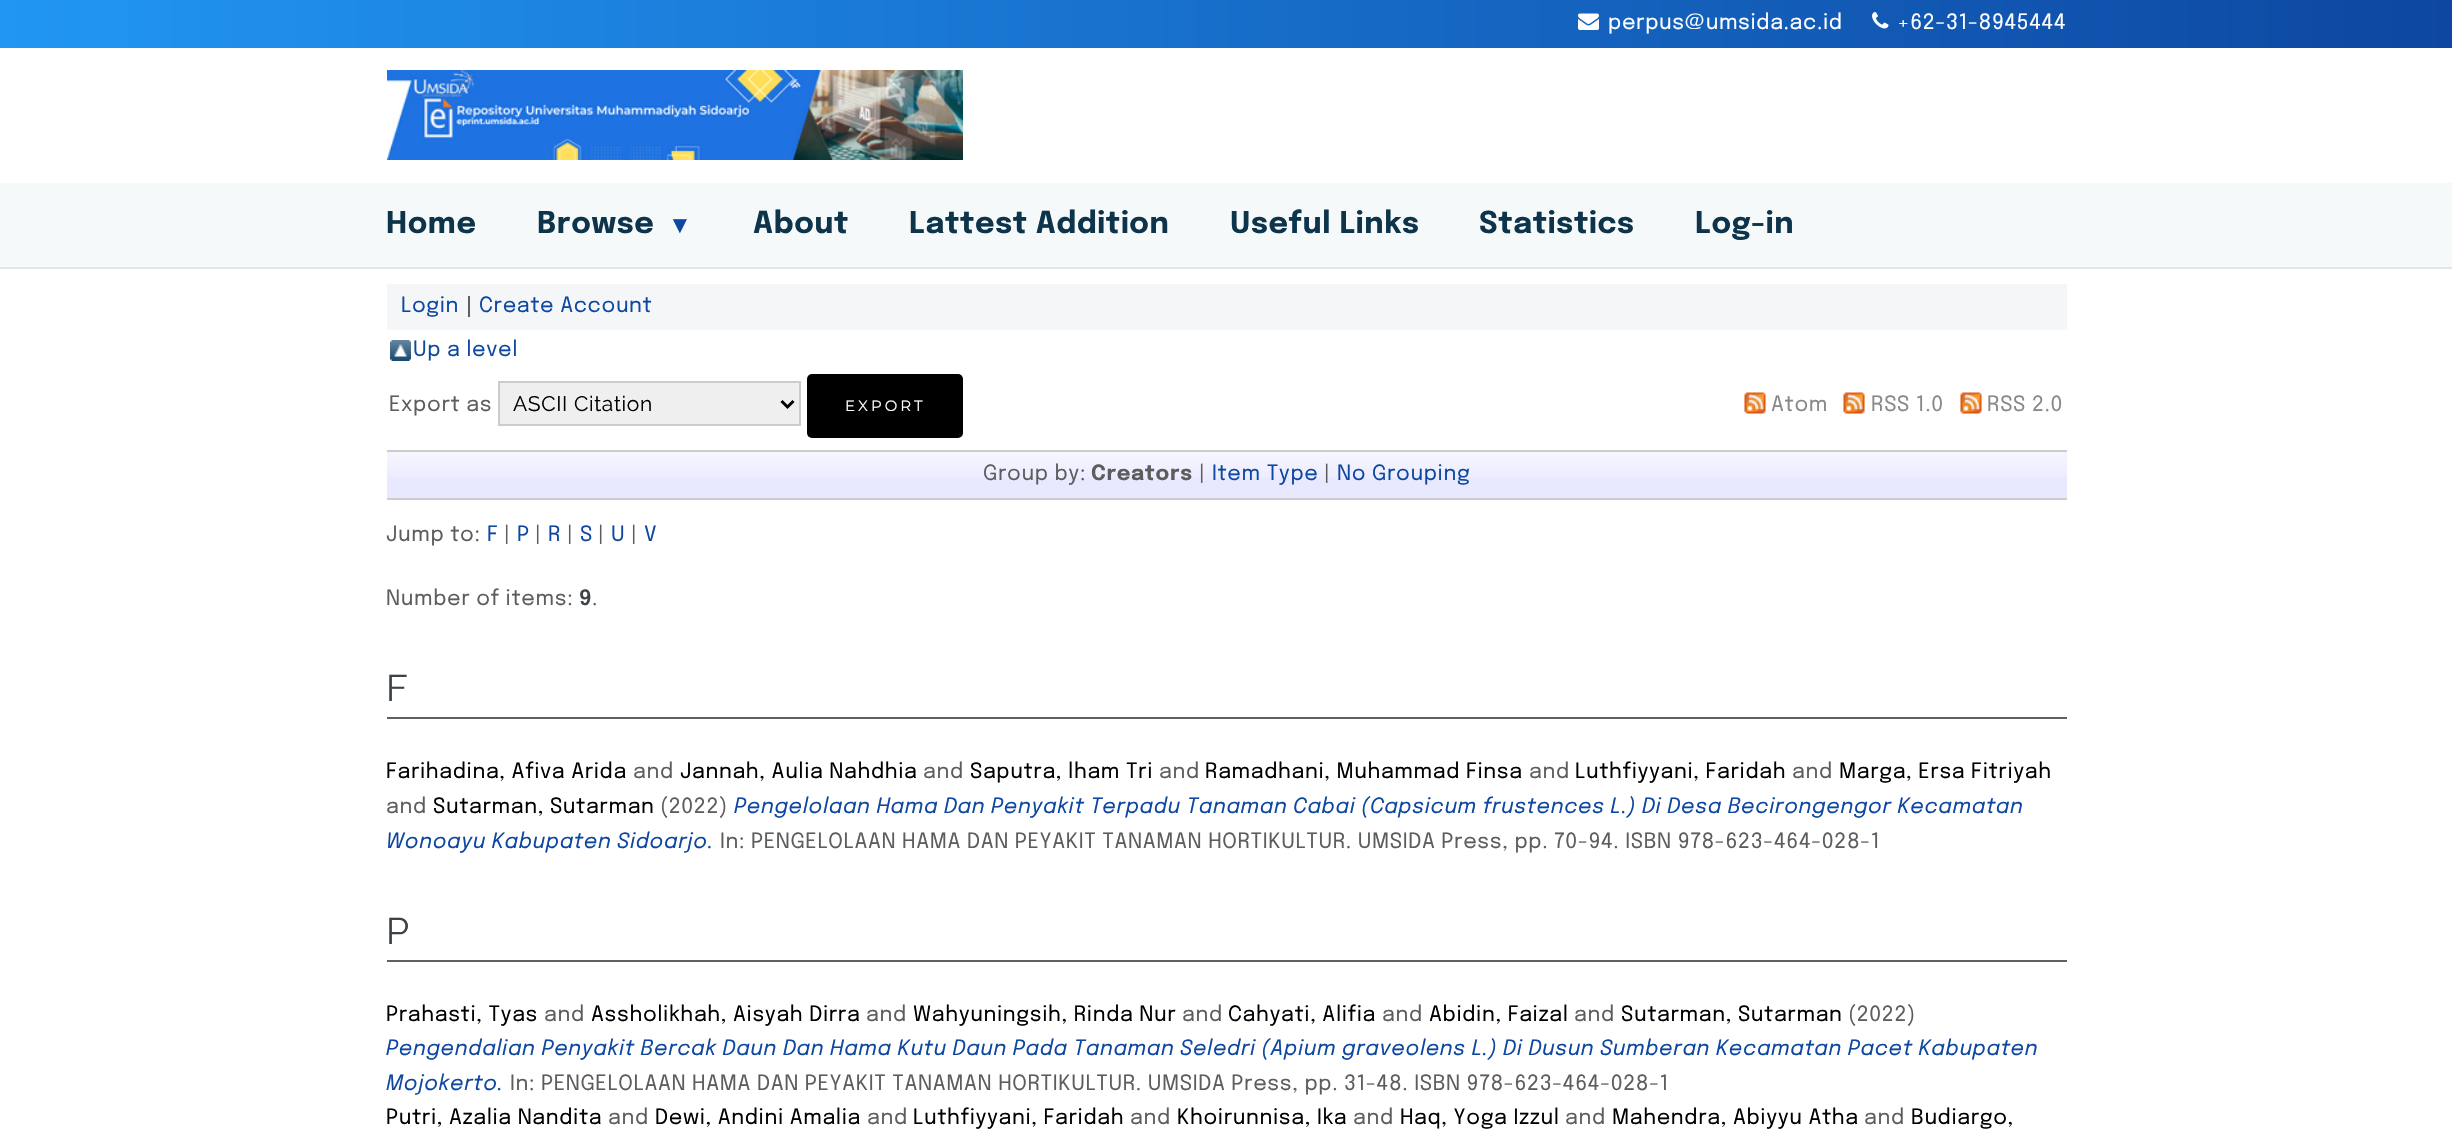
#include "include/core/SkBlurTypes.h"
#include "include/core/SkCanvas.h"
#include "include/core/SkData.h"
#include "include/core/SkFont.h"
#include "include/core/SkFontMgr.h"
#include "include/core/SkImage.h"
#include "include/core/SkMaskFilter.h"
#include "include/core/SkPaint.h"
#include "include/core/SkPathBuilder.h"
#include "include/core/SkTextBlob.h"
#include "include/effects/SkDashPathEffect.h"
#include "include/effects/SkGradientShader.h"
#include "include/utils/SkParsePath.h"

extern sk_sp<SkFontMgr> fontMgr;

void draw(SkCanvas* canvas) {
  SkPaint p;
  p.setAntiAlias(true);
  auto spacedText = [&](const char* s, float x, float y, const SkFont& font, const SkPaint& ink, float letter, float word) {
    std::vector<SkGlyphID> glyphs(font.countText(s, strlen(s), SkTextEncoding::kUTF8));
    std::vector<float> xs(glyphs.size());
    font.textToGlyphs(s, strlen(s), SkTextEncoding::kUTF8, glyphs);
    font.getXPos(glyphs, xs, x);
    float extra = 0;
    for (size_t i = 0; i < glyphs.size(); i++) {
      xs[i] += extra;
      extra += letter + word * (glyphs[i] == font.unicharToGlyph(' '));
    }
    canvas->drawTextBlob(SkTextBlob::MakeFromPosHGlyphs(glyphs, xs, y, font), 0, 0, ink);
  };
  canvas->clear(SK_ColorWHITE);
  {
    const SkColor colors[] = {SkColorSetRGB(33, 150, 243), SkColorSetRGB(13, 71, 161)};
    const float stops[] = {0, 1};
    const SkPoint ends[] = {{0, 23}, {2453, 23}};
    p.setShader(SkGradientShader::MakeLinear(ends, colors, stops, 2, SkTileMode::kClamp));
    p.setAlpha(255);
  }
  canvas->drawRect(SkRect::MakeLTRB(0, 0, 2452, 48), p);
  canvas->drawImageRect(SkImages::DeferredFromEncodedData(SkData::MakeFromFileName("images/1.png")), SkRect::MakeLTRB(1578, 13, 1599, 30), SkSamplingOptions());
  canvas->drawImageRect(SkImages::DeferredFromEncodedData(SkData::MakeFromFileName("images/2.png")), SkRect::MakeLTRB(1872, 12, 1889, 29), SkSamplingOptions());
  canvas->drawImageRect(SkImages::DeferredFromEncodedData(SkData::MakeFromFileName("images/3.png")), SkRect::MakeLTRB(387, 70, 963, 160), SkSamplingOptions());
  p.setShader(nullptr);
  p.setColor(SkColorSetRGB(246, 249, 250));
  canvas->drawRect(SkRect::MakeLTRB(0, 183, 2452, 267), p);
  p.setColor(SkColorSetRGB(224, 230, 234));
  canvas->drawRect(SkRect::MakeLTRB(0, 267, 2452, 269), p);
  p.setColor(SkColorSetRGB(245, 246, 247));
  canvas->drawRect(SkRect::MakeLTRB(387, 284, 2067, 330), p);
  p.setColor(SkColorSetRGB(96, 96, 96));
  canvas->drawRect(SkRect::MakeLTRB(468, 296, 470, 317), p);
  canvas->drawImageRect(SkImages::DeferredFromEncodedData(SkData::MakeFromFileName("images/4.png")), SkRect::MakeLTRB(390, 340, 411, 361), SkSamplingOptions());
  p.setColor(SkColorSetRGB(239, 239, 239));
  canvas->drawRect(SkRect::MakeLTRB(499, 382, 800, 425), p);
  p.setStyle(SkPaint::kStroke_Style);
  p.setStrokeWidth(2);
  p.setColor(SkColorSetRGB(204, 204, 204));
  canvas->drawRect(SkRect::MakeLTRB(499, 382, 800, 425), p);
  p.setStrokeWidth(3);
  p.setColor(SK_ColorBLACK);
  canvas->drawPath(SkPathBuilder().moveTo(781.5f, 401).lineTo(787.5f, 407).lineTo(793.5f, 401).detach(), p);
  p.setStyle(SkPaint::kFill_Style);
  canvas->drawRoundRect(SkRect::MakeLTRB(807, 374, 963, 438), 5, 5, p);
  canvas->drawImageRect(SkImages::DeferredFromEncodedData(SkData::MakeFromFileName("images/5.png")), SkRect::MakeLTRB(1744, 392, 1766, 414), SkSamplingOptions());
  canvas->drawImageRect(SkImages::DeferredFromEncodedData(SkData::MakeFromFileName("images/5.png")), SkRect::MakeLTRB(1843, 392, 1865, 414), SkSamplingOptions());
  canvas->drawImageRect(SkImages::DeferredFromEncodedData(SkData::MakeFromFileName("images/6.png")), SkRect::MakeLTRB(1960, 392, 1982, 414), SkSamplingOptions());
  p.setColor(SkColorSetRGB(232, 232, 255));
  canvas->drawRect(SkRect::MakeLTRB(387, 452, 2067, 498), p);
  canvas->drawImageRect(SkImages::DeferredFromEncodedData(SkData::MakeFromFileName("images/7.png")), SkRect::MakeLTRB(387, 452, 2067, 478), SkSamplingOptions());
  p.setColor(SkColorSetRGB(204, 204, 204));
  canvas->drawRect(SkRect::MakeLTRB(387, 450, 2067, 452), p);
  canvas->drawRect(SkRect::MakeLTRB(387, 498, 2067, 500), p);
  p.setColor(SkColorSetRGB(96, 96, 96));
  canvas->drawRect(SkRect::MakeLTRB(387, 717, 2067, 719), p);
  canvas->drawRect(SkRect::MakeLTRB(387, 960, 2067, 962), p);
  SkFont font1(fontMgr->matchFamilyStyle("Epilogue", SkFontStyle::Normal()), 21);
  font1.setSubpixel(true);
  p.setColor(SK_ColorWHITE);
  spacedText("perpus@umsida.ac.id", 1608, 29, font1, p, 0.63f, 0);
  spacedText("+62-31-8945444", 1897, 29, font1, p, 0.63f, 0);
  SkFont font2(fontMgr->matchFamilyStyle("Epilogue", SkFontStyle::Bold()), 30);
  font2.setSubpixel(true);
  p.setColor(SkColorSetRGB(13, 52, 74));
  spacedText("Home", 386, 233, font2, p, 0.63f, 0);
  spacedText("Browse", 537, 233, font2, p, 0.63f, 0);
  SkFont font3(fontMgr->matchFamilyStyle("Liberation Sans", SkFontStyle::Bold()), 24);
  font3.setSubpixel(true);
  p.setColor(SkColorSetRGB(13, 71, 161));
  spacedText("▼", 668, 233, font3, p, 0.63f, 0);
  p.setColor(SkColorSetRGB(13, 52, 74));
  spacedText("About", 753, 233, font2, p, 0.63f, 0);
  spacedText("Lattest Addition", 909, 233, font2, p, 0.63f, 0);
  spacedText("Useful Links", 1230, 233, font2, p, 0.63f, 0);
  spacedText("Statistics", 1479, 233, font2, p, 0.63f, 0);
  spacedText("Log-in", 1695, 233, font2, p, 0.63f, 0);
  p.setColor(SkColorSetRGB(13, 71, 161));
  spacedText("Login", 401, 312, font1, p, 0.63f, 0);
  spacedText("Create Account", 479, 312, font1, p, 0.63f, 0);
  spacedText("Up a level", 413, 356, font1, p, 0.63f, 0);
  p.setColor(SkColorSetRGB(93, 93, 93));
  spacedText("Export as", 389, 411, font1, p, 0.63f, 0);
  SkFont font4(fontMgr->matchFamilyStyle("Raleway", SkFontStyle::Normal()), 21);
  font4.setSubpixel(true);
  p.setColor(SK_ColorBLACK);
  spacedText("ASCII Citation", 513, 411, font4, p, 0.63f, 0);
  SkFont font5(fontMgr->matchFamilyStyle("Montserrat", SkFontStyle::Normal()), 15);
  font5.setSubpixel(true);
  p.setColor(SK_ColorWHITE);
  spacedText("EXPORT", 845, 411, font5, p, 3, 0);
  p.setColor(SkColorSetRGB(136, 136, 136));
  spacedText("Atom", 1771, 411, font1, p, 0.63f, 0);
  spacedText("RSS 1.0", 1871, 411, font1, p, 0.63f, 0);
  spacedText("RSS 2.0", 1987, 411, font1, p, 0.63f, 0);
  p.setColor(SkColorSetRGB(93, 93, 93));
  spacedText("Group by:", 983, 480, font1, p, 0.63f, 0);
  SkFont font6(fontMgr->matchFamilyStyle("Epilogue", SkFontStyle::Bold()), 21);
  font6.setSubpixel(true);
  spacedText("Creators", 1091, 480, font6, p, 0.63f, 0);
  spacedText("|", 1199, 480, font1, p, 0.63f, 0);
  p.setColor(SkColorSetRGB(13, 71, 161));
  spacedText("Item Type", 1212, 480, font1, p, 0.63f, 0);
  p.setColor(SkColorSetRGB(93, 93, 93));
  spacedText("|", 1324, 480, font1, p, 0.63f, 0);
  p.setColor(SkColorSetRGB(13, 71, 161));
  spacedText("No Grouping", 1337, 480, font1, p, 0.63f, 0);
  p.setColor(SkColorSetRGB(93, 93, 93));
  spacedText("Jump to:", 386, 541, font1, p, 0.63f, 0);
  p.setColor(SkColorSetRGB(13, 71, 161));
  spacedText("F", 487, 541, font1, p, 0.63f, 0);
  p.setColor(SkColorSetRGB(93, 93, 93));
  spacedText("|", 504, 541, font1, p, 0.63f, 0);
  p.setColor(SkColorSetRGB(13, 71, 161));
  spacedText("P", 517, 541, font1, p, 0.63f, 0);
  p.setColor(SkColorSetRGB(93, 93, 93));
  spacedText("|", 535, 541, font1, p, 0.63f, 0);
  p.setColor(SkColorSetRGB(13, 71, 161));
  spacedText("R", 548, 541, font1, p, 0.63f, 0);
  p.setColor(SkColorSetRGB(93, 93, 93));
  spacedText("|", 567, 541, font1, p, 0.63f, 0);
  p.setColor(SkColorSetRGB(13, 71, 161));
  spacedText("S", 580, 541, font1, p, 0.63f, 0);
  p.setColor(SkColorSetRGB(93, 93, 93));
  spacedText("|", 598, 541, font1, p, 0.63f, 0);
  p.setColor(SkColorSetRGB(13, 71, 161));
  spacedText("U", 611, 541, font1, p, 0.63f, 0);
  p.setColor(SkColorSetRGB(93, 93, 93));
  spacedText("|", 631, 541, font1, p, 0.63f, 0);
  p.setColor(SkColorSetRGB(13, 71, 161));
  spacedText("V", 644, 541, font1, p, 0.63f, 0);
  p.setColor(SkColorSetRGB(93, 93, 93));
  spacedText("Number of items:", 386, 605, font1, p, 0.63f, 0);
  SkFont font7(fontMgr->matchFamilyStyle("Epilogue", SkFontStyle(600, SkFontStyle::kNormal_Width, SkFontStyle::kUpright_Slant)), 21);
  font7.setSubpixel(true);
  p.setColor(SkColorSetRGB(61, 68, 73));
  spacedText("9", 579, 605, font7, p, 0.63f, 0);
  p.setColor(SkColorSetRGB(93, 93, 93));
  spacedText(".", 592, 605, font1, p, 0.63f, 0);
  SkFont font8(fontMgr->matchFamilyStyle("Raleway", SkFontStyle::Normal()), 37);
  font8.setSubpixel(true);
  p.setColor(SkColorSetRGB(61, 68, 73));
  spacedText("F", 386, 701, font8, p, 0.63f, 0);
  p.setColor(SK_ColorBLACK);
  spacedText("Farihadina, Afiva Arida", 386, 778, font1, p, 0.63f, 0);
  p.setColor(SkColorSetRGB(93, 93, 93));
  spacedText("and", 633, 778, font1, p, 0.63f, 0);
  p.setColor(SK_ColorBLACK);
  spacedText("Jannah, Aulia Nahdhia", 680, 778, font1, p, 0.63f, 0);
  p.setColor(SkColorSetRGB(93, 93, 93));
  spacedText("and", 923, 778, font1, p, 0.63f, 0);
  p.setColor(SK_ColorBLACK);
  spacedText("Saputra, lham Tri", 970, 778, font1, p, 0.63f, 0);
  p.setColor(SkColorSetRGB(93, 93, 93));
  spacedText("and", 1159, 778, font1, p, 0.63f, 0);
  p.setColor(SK_ColorBLACK);
  spacedText("Ramadhani, Muhammad Finsa", 1205, 778, font1, p, 0.63f, 0);
  p.setColor(SkColorSetRGB(93, 93, 93));
  spacedText("and", 1529, 778, font1, p, 0.63f, 0);
  p.setColor(SK_ColorBLACK);
  spacedText("Luthfiyyani, Faridah", 1575, 778, font1, p, 0.63f, 0);
  p.setColor(SkColorSetRGB(93, 93, 93));
  spacedText("and", 1792, 778, font1, p, 0.63f, 0);
  p.setColor(SK_ColorBLACK);
  spacedText("Marga, Ersa Fitriyah", 1839, 778, font1, p, 0.63f, 0);
  p.setColor(SkColorSetRGB(93, 93, 93));
  spacedText("and", 386, 813, font1, p, 0.63f, 0);
  p.setColor(SK_ColorBLACK);
  spacedText("Sutarman, Sutarman", 433, 813, font1, p, 0.63f, 0);
  p.setColor(SkColorSetRGB(93, 93, 93));
  spacedText("(2022)", 660, 813, font1, p, 0.63f, 0);
  SkFont font9(fontMgr->matchFamilyStyle("Epilogue", SkFontStyle::Italic()), 21);
  font9.setSubpixel(true);
  p.setColor(SkColorSetRGB(13, 71, 161));
  spacedText("Pengelolaan Hama Dan Penyakit Terpadu Tanaman Cabai (Capsicum frustences L.) Di Desa Becirongengor Kecamatan", 734, 813, font9, p, 0.63f, 0);
  spacedText("Wonoayu Kabupaten Sidoarjo.", 386, 848, font9, p, 0.63f, 0);
  p.setColor(SkColorSetRGB(93, 93, 93));
  spacedText("In: PENGELOLAAN HAMA DAN PEYAKIT TANAMAN HORTIKULTUR. UMSIDA Press, pp. 70-94. ISBN 978-623-464-028-1", 720, 848, font1, p, 0.63f, 0);
  p.setColor(SkColorSetRGB(61, 68, 73));
  spacedText("P", 386, 944, font8, p, 0.63f, 0);
  p.setColor(SK_ColorBLACK);
  spacedText("Prahasti, Tyas", 386, 1021, font1, p, 0.63f, 0);
  p.setColor(SkColorSetRGB(93, 93, 93));
  spacedText("and", 544, 1021, font1, p, 0.63f, 0);
  p.setColor(SK_ColorBLACK);
  spacedText("Assholikhah, Aisyah Dirra", 591, 1021, font1, p, 0.63f, 0);
  p.setColor(SkColorSetRGB(93, 93, 93));
  spacedText("and", 866, 1021, font1, p, 0.63f, 0);
  p.setColor(SK_ColorBLACK);
  spacedText("Wahyuningsih, Rinda Nur", 913, 1021, font1, p, 0.63f, 0);
  p.setColor(SkColorSetRGB(93, 93, 93));
  spacedText("and", 1182, 1021, font1, p, 0.63f, 0);
  p.setColor(SK_ColorBLACK);
  spacedText("Cahyati, Alifia", 1228, 1021, font1, p, 0.63f, 0);
  p.setColor(SkColorSetRGB(93, 93, 93));
  spacedText("and", 1382, 1021, font1, p, 0.63f, 0);
  p.setColor(SK_ColorBLACK);
  spacedText("Abidin, Faizal", 1429, 1021, font1, p, 0.63f, 0);
  p.setColor(SkColorSetRGB(93, 93, 93));
  spacedText("and", 1574, 1021, font1, p, 0.63f, 0);
  p.setColor(SK_ColorBLACK);
  spacedText("Sutarman, Sutarman", 1621, 1021, font1, p, 0.63f, 0);
  p.setColor(SkColorSetRGB(93, 93, 93));
  spacedText("(2022)", 1848, 1021, font1, p, 0.63f, 0);
  p.setColor(SkColorSetRGB(13, 71, 161));
  spacedText("Pengendalian Penyakit Bercak Daun Dan Hama Kutu Daun Pada Tanaman Seledri (Apium graveolens L.) Di Dusun Sumberan Kecamatan Pacet Kabupaten", 386, 1055, font9, p, 0.63f, 0);
  spacedText("Mojokerto.", 386, 1090, font9, p, 0.63f, 0);
  p.setColor(SkColorSetRGB(93, 93, 93));
  spacedText("In: PENGELOLAAN HAMA DAN PEYAKIT TANAMAN HORTIKULTUR. UMSIDA Press, pp. 31-48. ISBN 978-623-464-028-1", 510, 1090, font1, p, 0.63f, 0);
  p.setColor(SK_ColorBLACK);
  spacedText("Putri, Azalia Nandita", 386, 1124, font1, p, 0.63f, 0);
  p.setColor(SkColorSetRGB(93, 93, 93));
  spacedText("and", 608, 1124, font1, p, 0.63f, 0);
  p.setColor(SK_ColorBLACK);
  spacedText("Dewi, Andini Amalia", 655, 1124, font1, p, 0.63f, 0);
  p.setColor(SkColorSetRGB(93, 93, 93));
  spacedText("and", 867, 1124, font1, p, 0.63f, 0);
  p.setColor(SK_ColorBLACK);
  spacedText("Luthfiyyani, Faridah", 913, 1124, font1, p, 0.63f, 0);
  p.setColor(SkColorSetRGB(93, 93, 93));
  spacedText("and", 1130, 1124, font1, p, 0.63f, 0);
  p.setColor(SK_ColorBLACK);
  spacedText("Khoirunnisa, Ika", 1177, 1124, font1, p, 0.63f, 0);
  p.setColor(SkColorSetRGB(93, 93, 93));
  spacedText("and", 1353, 1124, font1, p, 0.63f, 0);
  p.setColor(SK_ColorBLACK);
  spacedText("Haq, Yoga Izzul", 1400, 1124, font1, p, 0.63f, 0);
  p.setColor(SkColorSetRGB(93, 93, 93));
  spacedText("and", 1565, 1124, font1, p, 0.63f, 0);
  p.setColor(SK_ColorBLACK);
  spacedText("Mahendra, Abiyyu Atha", 1612, 1124, font1, p, 0.63f, 0);
  p.setColor(SkColorSetRGB(93, 93, 93));
  spacedText("and", 1864, 1124, font1, p, 0.63f, 0);
  p.setColor(SK_ColorBLACK);
  spacedText("Budiargo,", 1911, 1124, font1, p, 0.63f, 0);
}
